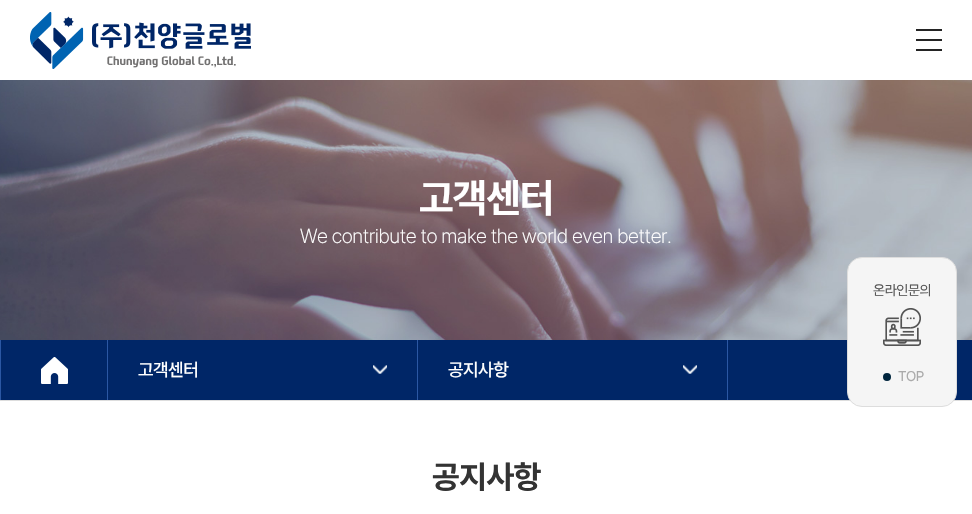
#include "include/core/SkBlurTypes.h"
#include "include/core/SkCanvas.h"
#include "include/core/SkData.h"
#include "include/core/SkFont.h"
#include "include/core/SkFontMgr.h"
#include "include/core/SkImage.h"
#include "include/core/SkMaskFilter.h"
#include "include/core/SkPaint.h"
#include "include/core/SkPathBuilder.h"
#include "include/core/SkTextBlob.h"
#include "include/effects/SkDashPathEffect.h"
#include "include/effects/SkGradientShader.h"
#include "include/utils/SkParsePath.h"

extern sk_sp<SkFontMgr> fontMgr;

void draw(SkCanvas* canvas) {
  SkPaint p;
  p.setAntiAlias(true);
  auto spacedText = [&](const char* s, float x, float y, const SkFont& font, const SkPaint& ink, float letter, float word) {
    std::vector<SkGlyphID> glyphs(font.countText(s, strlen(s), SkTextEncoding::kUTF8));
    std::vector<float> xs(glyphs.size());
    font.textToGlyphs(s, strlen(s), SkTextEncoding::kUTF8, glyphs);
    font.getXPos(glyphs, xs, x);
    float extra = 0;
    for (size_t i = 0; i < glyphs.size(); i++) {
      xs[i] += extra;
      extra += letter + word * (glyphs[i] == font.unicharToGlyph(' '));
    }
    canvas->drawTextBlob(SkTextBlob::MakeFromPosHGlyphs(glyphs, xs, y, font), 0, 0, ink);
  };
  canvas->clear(SK_ColorWHITE);
  canvas->drawImageRect(SkImages::DeferredFromEncodedData(SkData::MakeFromFileName("images/1.png")), SkRect::MakeLTRB(30, 12, 251, 69), SkSamplingOptions());
  p.setColor(SkColorSetRGB(36, 36, 36));
  canvas->drawRect(SkRect::MakeLTRB(916, 39, 942, 41), p);
  canvas->drawRect(SkRect::MakeLTRB(916, 29, 942, 31), p);
  canvas->drawRect(SkRect::MakeLTRB(916, 49, 942, 51), p);
  canvas->drawImageRect(SkImages::DeferredFromEncodedData(SkData::MakeFromFileName("images/2.png")), SkRect::MakeLTRB(0, 80, 972, 340), SkSamplingOptions());
  p.setColor(SkColorSetRGB(0, 38, 103));
  canvas->drawRect(SkRect::MakeLTRB(1, 340, 972, 400), p);
  p.setColor(SkColorSetRGB(221, 221, 221));
  canvas->drawRect(SkRect::MakeLTRB(0, 400, 972, 401), p);
  canvas->drawImageRect(SkImages::DeferredFromEncodedData(SkData::MakeFromFileName("images/3.png")), SkRect::MakeLTRB(41, 357, 68, 384), SkSamplingOptions());
  p.setColor(SkColorSetRGB(43, 87, 163));
  canvas->drawRect(SkRect::MakeLTRB(107, 340, 108, 400), p);
  canvas->drawRect(SkRect::MakeLTRB(0, 340, 1, 400), p);
  canvas->drawRect(SkRect::MakeLTRB(417, 340, 418, 400), p);
  canvas->drawImageRect(SkImages::DeferredFromEncodedData(SkData::MakeFromFileName("images/4.png")), SkRect::MakeLTRB(373, 365, 387, 374), SkSamplingOptions());
  canvas->drawRect(SkRect::MakeLTRB(727, 340, 728, 400), p);
  canvas->drawImageRect(SkImages::DeferredFromEncodedData(SkData::MakeFromFileName("images/4.png")), SkRect::MakeLTRB(683, 365, 697, 374), SkSamplingOptions());
  p.setColor(SkColorSetRGB(245, 245, 245));
  canvas->drawRoundRect(SkRect::MakeLTRB(847.5f, 257.5f, 956.5f, 406.5f), 14.5f, 14.5f, p);
  p.setStyle(SkPaint::kStroke_Style);
  p.setStrokeWidth(1);
  p.setColor(SkColorSetRGB(221, 221, 221));
  canvas->drawRoundRect(SkRect::MakeLTRB(847.5f, 257.5f, 956.5f, 406.5f), 14.5f, 14.5f, p);
  canvas->drawImageRect(SkImages::DeferredFromEncodedData(SkData::MakeFromFileName("images/5.png")), SkRect::MakeLTRB(883, 308, 921, 346), SkSamplingOptions());
  p.setStyle(SkPaint::kFill_Style);
  p.setColor(SkColorSetRGB(0, 37, 61));
  canvas->drawCircle(887, 377, 4, p);
  SkFont font1(fontMgr->matchFamilyStyle("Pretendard", SkFontStyle::Bold()), 40);
  font1.setSubpixel(true);
  p.setColor(SK_ColorWHITE);
  spacedText("고객센터", 419, 212, font1, p, -1, 0);
  SkFont font2(fontMgr->matchFamilyStyle("Pretendard", SkFontStyle(200, SkFontStyle::kNormal_Width, SkFontStyle::kUpright_Slant)), 20);
  font2.setSubpixel(true);
  spacedText("We contribute to make the world even better.", 300, 243, font2, p, -0.45f, 0);
  SkFont font3(fontMgr->matchFamilyStyle("Pretendard", SkFontStyle(500, SkFontStyle::kNormal_Width, SkFontStyle::kUpright_Slant)), 18);
  font3.setSubpixel(true);
  spacedText("고객센터", 138, 376, font3, p, -0.5f, 0);
  spacedText("공지사항", 448, 376, font3, p, -0.5f, 0);
  SkFont font4(fontMgr->matchFamilyStyle("Pretendard", SkFontStyle::Normal()), 14);
  font4.setSubpixel(true);
  p.setColor(SkColorSetRGB(85, 85, 85));
  spacedText("온라인문의", 873, 295, font4, p, -0.45f, 0);
  p.setColor(SkColorSetRGB(170, 170, 170));
  spacedText("TOP", 898, 381, font4, p, -0.45f, 0);
  SkFont font5(fontMgr->matchFamilyStyle("Pretendard", SkFontStyle::Bold()), 32);
  font5.setSubpixel(true);
  p.setColor(SkColorSetRGB(51, 51, 51));
  spacedText("공지사항", 432, 488, font5, p, -0.45f, 0);
}
